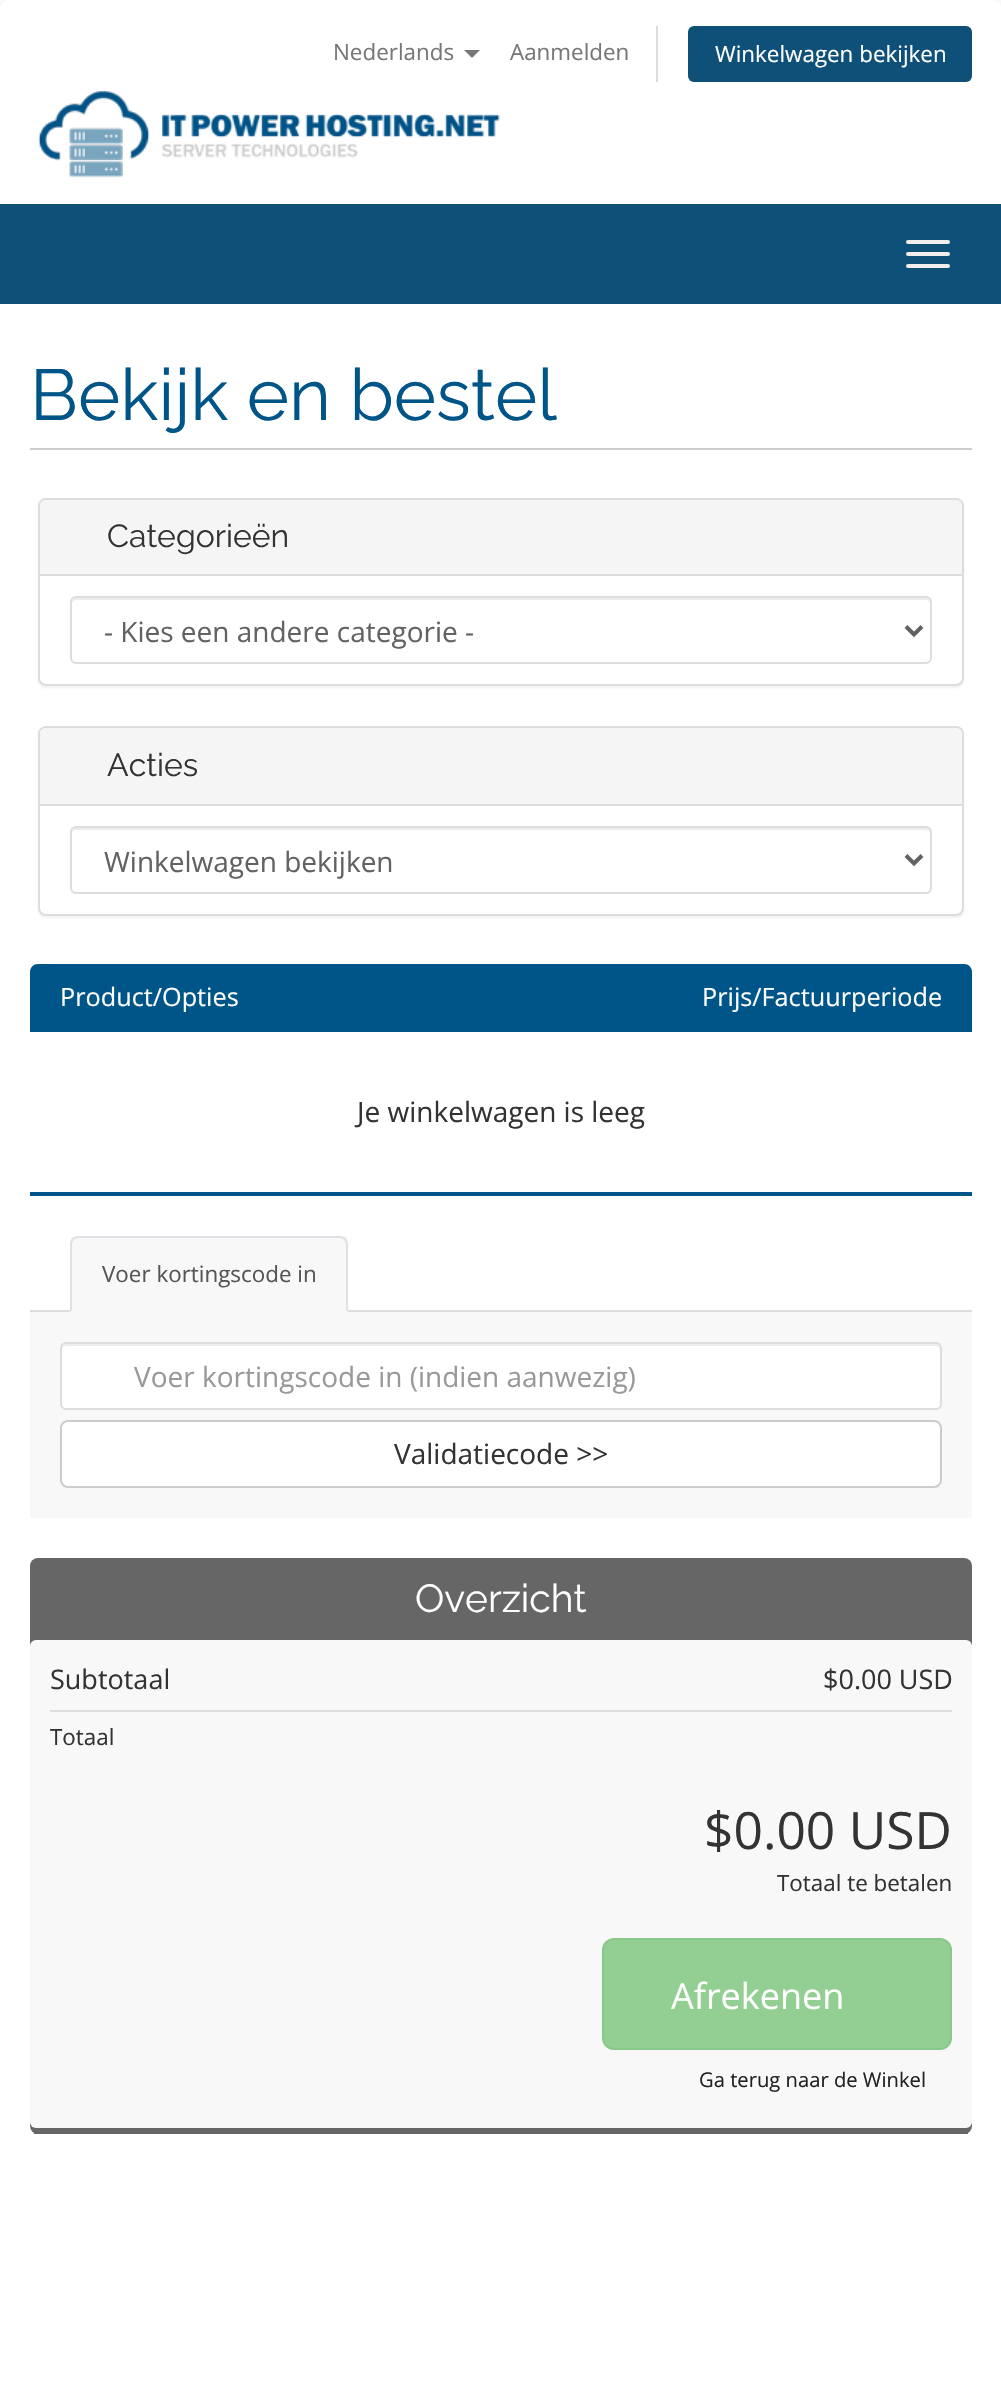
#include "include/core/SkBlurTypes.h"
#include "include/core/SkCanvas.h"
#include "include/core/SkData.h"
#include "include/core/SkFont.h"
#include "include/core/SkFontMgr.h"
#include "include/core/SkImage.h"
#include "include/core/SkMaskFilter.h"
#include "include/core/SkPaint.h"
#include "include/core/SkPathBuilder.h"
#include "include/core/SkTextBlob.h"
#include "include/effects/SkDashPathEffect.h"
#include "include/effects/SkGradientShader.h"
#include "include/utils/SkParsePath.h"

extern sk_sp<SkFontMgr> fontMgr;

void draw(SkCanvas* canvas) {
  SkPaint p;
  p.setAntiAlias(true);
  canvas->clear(SkColorSetRGB(248, 248, 248));
  p.setColor(SK_ColorWHITE);
  canvas->drawPath(SkPathBuilder().moveTo(10, 0).lineTo(992, 0).cubicTo(997.5f, 0, 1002, 4.5f, 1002, 10).lineTo(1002, 204).lineTo(0, 204).lineTo(0, 10).cubicTo(0, 4.5f, 4.5f, 0, 10, 0).close().detach(), p);
  p.setColor(SkColorSetRGB(119, 119, 119));
  canvas->drawPath(SkPathBuilder().moveTo(464, 50).lineTo(480, 50).lineTo(472, 58).close().detach(), p);
  p.setColor(SkColorSetRGB(221, 221, 221));
  canvas->drawRect(SkRect::MakeLTRB(656, 26, 658, 82), p);
  p.setColor(SkColorSetRGB(14, 80, 119));
  canvas->drawRoundRect(SkRect::MakeLTRB(688, 26, 972, 82), 6, 6, p);
  canvas->drawImageRect(SkImages::DeferredFromEncodedData(SkData::MakeFromFileName("images/1.png")), SkRect::MakeLTRB(38, 90, 500, 178), SkSamplingOptions());
  canvas->drawRect(SkRect::MakeLTRB(0, 204, 1001, 304), p);
  p.setColor(SkColorSetRGB(238, 238, 238));
  canvas->drawRoundRect(SkRect::MakeLTRB(906, 240, 950, 244), 2, 2, p);
  canvas->drawRoundRect(SkRect::MakeLTRB(906, 252, 950, 256), 2, 2, p);
  canvas->drawRoundRect(SkRect::MakeLTRB(906, 264, 950, 268), 2, 2, p);
  p.setColor(SK_ColorWHITE);
  canvas->drawRect(SkRect::MakeLTRB(0, 304, 1001, 2390), p);
  p.setColor(SkColorSetRGB(204, 204, 204));
  canvas->drawRect(SkRect::MakeLTRB(30, 448, 972, 450), p);
  p.setColor(SkColorSetARGB(13, 0, 0, 0));
  p.setMaskFilter(SkMaskFilter::MakeBlur(kNormal_SkBlurStyle, 1));
  canvas->drawRoundRect(SkRect::MakeLTRB(38, 500, 964, 688), 8, 8, p);
  p.setMaskFilter(nullptr);
  p.setColor(SK_ColorWHITE);
  canvas->drawRoundRect(SkRect::MakeLTRB(39, 499, 963, 685), 7, 7, p);
  p.setStyle(SkPaint::kStroke_Style);
  p.setStrokeWidth(2);
  p.setColor(SkColorSetRGB(221, 221, 221));
  canvas->drawRoundRect(SkRect::MakeLTRB(39, 499, 963, 685), 7, 7, p);
  p.setStyle(SkPaint::kFill_Style);
  p.setColor(SkColorSetRGB(245, 245, 245));
  canvas->drawPath(SkPathBuilder().moveTo(46, 500).lineTo(956, 500).cubicTo(959.5f, 500, 962, 502.5f, 962, 506).lineTo(962, 576).lineTo(40, 576).lineTo(40, 506).cubicTo(40, 502.5f, 42.5f, 500, 46, 500).close().detach(), p);
  p.setColor(SkColorSetRGB(221, 221, 221));
  canvas->drawRect(SkRect::MakeLTRB(40, 574, 962, 576), p);
  p.setColor(SkColorSetRGB(236, 236, 236));
  canvas->drawPath(SkPathBuilder().moveTo(76, 600).lineTo(926, 600).cubicTo(928, 600, 930, 602, 930, 604).lineTo(930, 602).cubicTo(930, 600, 928, 598, 926, 598).lineTo(76, 598).cubicTo(74, 598, 72, 600, 72, 602).lineTo(72, 604).cubicTo(72, 602, 74, 600, 76, 600).close().detach(), p);
  p.setStyle(SkPaint::kStroke_Style);
  p.setColor(SkColorSetRGB(221, 221, 221));
  canvas->drawRoundRect(SkRect::MakeLTRB(71, 597, 931, 663), 5, 5, p);
  p.setStrokeWidth(4);
  p.setColor(SkColorSetRGB(98, 98, 98));
  canvas->drawPath(SkPathBuilder().moveTo(906, 626.5f).lineTo(914, 634.5f).lineTo(922, 626.5f).detach(), p);
  p.setStyle(SkPaint::kFill_Style);
  p.setColor(SkColorSetARGB(13, 0, 0, 0));
  p.setMaskFilter(SkMaskFilter::MakeBlur(kNormal_SkBlurStyle, 1));
  canvas->drawRoundRect(SkRect::MakeLTRB(38, 728, 964, 918), 8, 8, p);
  p.setMaskFilter(nullptr);
  p.setColor(SK_ColorWHITE);
  canvas->drawRoundRect(SkRect::MakeLTRB(39, 727, 963, 915), 7, 7, p);
  p.setStyle(SkPaint::kStroke_Style);
  p.setStrokeWidth(2);
  p.setColor(SkColorSetRGB(221, 221, 221));
  canvas->drawRoundRect(SkRect::MakeLTRB(39, 727, 963, 915), 7, 7, p);
  p.setStyle(SkPaint::kFill_Style);
  p.setColor(SkColorSetRGB(245, 245, 245));
  canvas->drawPath(SkPathBuilder().moveTo(46, 728).lineTo(956, 728).cubicTo(959.5f, 728, 962, 730.5f, 962, 734).lineTo(962, 806).lineTo(40, 806).lineTo(40, 734).cubicTo(40, 730.5f, 42.5f, 728, 46, 728).close().detach(), p);
  p.setColor(SkColorSetRGB(221, 221, 221));
  canvas->drawRect(SkRect::MakeLTRB(40, 804, 962, 806), p);
  p.setColor(SkColorSetRGB(236, 236, 236));
  canvas->drawPath(SkPathBuilder().moveTo(76, 830).lineTo(926, 830).cubicTo(928, 830, 930, 832, 930, 834).lineTo(930, 832).cubicTo(930, 830, 928, 828, 926, 828).lineTo(76, 828).cubicTo(74, 828, 72, 830, 72, 832).lineTo(72, 834).cubicTo(72, 832, 74, 830, 76, 830).close().detach(), p);
  p.setStyle(SkPaint::kStroke_Style);
  p.setColor(SkColorSetRGB(221, 221, 221));
  canvas->drawRoundRect(SkRect::MakeLTRB(71, 827, 931, 893), 5, 5, p);
  p.setStrokeWidth(4);
  p.setColor(SkColorSetRGB(98, 98, 98));
  canvas->drawPath(SkPathBuilder().moveTo(906, 855.5f).lineTo(914, 863.5f).lineTo(922, 855.5f).detach(), p);
  p.setStyle(SkPaint::kFill_Style);
  p.setColor(SkColorSetRGB(0, 85, 136));
  canvas->drawPath(SkPathBuilder().moveTo(38, 964).lineTo(964, 964).cubicTo(968.5f, 964, 972, 967.5f, 972, 972).lineTo(972, 1032).lineTo(30, 1032).lineTo(30, 972).cubicTo(30, 967.5f, 33.5f, 964, 38, 964).close().detach(), p);
  canvas->drawRect(SkRect::MakeLTRB(30, 1192, 972, 1196), p);
  p.setColor(SkColorSetRGB(221, 221, 221));
  canvas->drawRect(SkRect::MakeLTRB(30, 1310, 972, 1312), p);
  p.setColor(SkColorSetRGB(248, 248, 248));
  canvas->drawPath(SkPathBuilder().moveTo(78, 1236).lineTo(340, 1236).cubicTo(344.5f, 1236, 348, 1239.5f, 348, 1244).lineTo(348, 1312).lineTo(70, 1312).lineTo(70, 1244).cubicTo(70, 1239.5f, 73.5f, 1236, 78, 1236).close().detach(), p);
  p.setColor(SkColorSetRGB(222, 226, 230));
  canvas->drawPath(SkPathBuilder().moveTo(78, 1236).cubicTo(76, 1236, 74, 1237, 72, 1238).lineTo(74, 1240).cubicTo(75, 1239, 76, 1238, 78, 1238).lineTo(340, 1238).cubicTo(342, 1238, 343, 1239, 344, 1240).lineTo(346, 1238).cubicTo(344, 1237, 342, 1236, 340, 1236).close().detach(), p);
  canvas->drawPath(SkPathBuilder().moveTo(348, 1312).lineTo(348, 1244).cubicTo(348, 1242, 347, 1240, 346, 1238).lineTo(344, 1240).cubicTo(345, 1241, 346, 1242, 346, 1244).lineTo(346, 1310).close().detach(), p);
  p.setColor(SkColorSetRGB(248, 248, 248));
  canvas->drawPath(SkPathBuilder().moveTo(348, 1312).lineTo(346, 1310).lineTo(72, 1310).lineTo(70, 1312).close().detach(), p);
  p.setColor(SkColorSetRGB(222, 226, 230));
  canvas->drawPath(SkPathBuilder().moveTo(70, 1312).lineTo(72, 1310).lineTo(72, 1244).cubicTo(72, 1242, 73, 1241, 74, 1240).lineTo(72, 1238).cubicTo(71, 1240, 70, 1242, 70, 1244).close().detach(), p);
  p.setColor(SkColorSetRGB(248, 248, 248));
  canvas->drawRect(SkRect::MakeLTRB(30, 1312, 972, 1518), p);
  p.setColor(SK_ColorWHITE);
  canvas->drawRoundRect(SkRect::MakeLTRB(60, 1342, 942, 1410), 6, 6, p);
  p.setColor(SkColorSetRGB(236, 236, 236));
  canvas->drawPath(SkPathBuilder().moveTo(66, 1346).lineTo(936, 1346).cubicTo(938, 1346, 940, 1348, 940, 1350).lineTo(940, 1348).cubicTo(940, 1346, 938, 1344, 936, 1344).lineTo(66, 1344).cubicTo(64, 1344, 62, 1346, 62, 1348).lineTo(62, 1350).cubicTo(62, 1348, 64, 1346, 66, 1346).close().detach(), p);
  p.setStyle(SkPaint::kStroke_Style);
  p.setStrokeWidth(2);
  p.setColor(SkColorSetRGB(221, 221, 221));
  canvas->drawRoundRect(SkRect::MakeLTRB(61, 1343, 941, 1409), 5, 5, p);
  p.setStyle(SkPaint::kFill_Style);
  p.setColor(SK_ColorWHITE);
  canvas->drawRoundRect(SkRect::MakeLTRB(61, 1421, 941, 1487), 7, 7, p);
  p.setStyle(SkPaint::kStroke_Style);
  p.setColor(SkColorSetRGB(204, 204, 204));
  canvas->drawRoundRect(SkRect::MakeLTRB(61, 1421, 941, 1487), 7, 7, p);
  p.setStyle(SkPaint::kFill_Style);
  p.setColor(SkColorSetRGB(102, 102, 102));
  canvas->drawRoundRect(SkRect::MakeLTRB(30, 1558, 972, 2134), 8, 8, p);
  canvas->drawRect(SkRect::MakeLTRB(34, 2133, 968, 2134), p);
  p.setColor(SkColorSetRGB(248, 248, 248));
  canvas->drawRoundRect(SkRect::MakeLTRB(30, 1640, 972, 2128), 6, 6, p);
  p.setColor(SkColorSetRGB(221, 221, 221));
  canvas->drawRect(SkRect::MakeLTRB(50, 1710, 952, 1712), p);
  p.setColor(SkColorSetRGB(147, 206, 147));
  canvas->drawRoundRect(SkRect::MakeLTRB(603, 1939, 951, 2049), 11, 11, p);
  p.setStyle(SkPaint::kStroke_Style);
  p.setColor(SkColorSetRGB(136, 200, 136));
  canvas->drawRoundRect(SkRect::MakeLTRB(603, 1939, 951, 2049), 11, 11, p);
  SkFont font1(fontMgr->matchFamilyStyle("Open Sans", SkFontStyle::Normal()), 22.4f);
  font1.setSubpixel(true);
  p.setStyle(SkPaint::kFill_Style);
  p.setColor(SkColorSetRGB(119, 119, 119));
  canvas->drawString("Nederlands", 333, 60, font1, p);
  canvas->drawString("Aanmelden", 510, 60, font1, p);
  p.setColor(SK_ColorWHITE);
  canvas->drawString("Winkelwagen bekijken", 715, 62, font1, p);
  SkFont font2(fontMgr->matchFamilyStyle("Raleway", SkFontStyle::Normal()), 72);
  font2.setSubpixel(true);
  p.setColor(SkColorSetRGB(0, 85, 136));
  canvas->drawString("Bekijk en bestel", 30, 420, font2, p);
  SkFont font3(fontMgr->matchFamilyStyle("Raleway", SkFontStyle::Normal()), 32);
  font3.setSubpixel(true);
  p.setColor(SkColorSetRGB(51, 51, 51));
  canvas->drawString("Categorieën", 107, 547, font3, p);
  SkFont font4(fontMgr->matchFamilyStyle("Open Sans", SkFontStyle::Normal()), 28);
  font4.setSubpixel(true);
  p.setColor(SkColorSetRGB(98, 98, 98));
  canvas->drawString("- Kies een andere categorie -", 104, 642, font4, p);
  p.setColor(SkColorSetRGB(51, 51, 51));
  canvas->drawString("Acties", 107, 776, font3, p);
  p.setColor(SkColorSetRGB(98, 98, 98));
  canvas->drawString("Winkelwagen bekijken", 104, 872, font4, p);
  SkFont font5(fontMgr->matchFamilyStyle("Open Sans", SkFontStyle::Normal()), 25.25f);
  font5.setSubpixel(true);
  p.setColor(SK_ColorWHITE);
  canvas->drawString("Product/Opties", 60, 1006, font5, p);
  canvas->drawString("Prijs/Factuurperiode", 702, 1006, font5, p);
  p.setColor(SkColorSetRGB(51, 51, 51));
  canvas->drawString("Je winkelwagen is leeg", 357, 1122, font4, p);
  p.setColor(SkColorSetRGB(85, 85, 85));
  canvas->drawString("Voer kortingscode in", 102, 1282, font1, p);
  p.setColor(SkColorSetRGB(153, 153, 153));
  canvas->drawString("Voer kortingscode in (indien aanwezig)", 134, 1387, font4, p);
  p.setColor(SkColorSetRGB(51, 51, 51));
  canvas->drawString("Validatiecode >>", 394, 1464, font4, p);
  SkFont font6(fontMgr->matchFamilyStyle("Raleway", SkFontStyle::Normal()), 39);
  font6.setSubpixel(true);
  p.setColor(SK_ColorWHITE);
  canvas->drawString("Overzicht", 415, 1612, font6, p);
  SkFont font7(fontMgr->matchFamilyStyle("Open Sans", SkFontStyle::Normal()), 27);
  font7.setSubpixel(true);
  p.setColor(SkColorSetRGB(51, 51, 51));
  canvas->drawString("Subtotaal", 50, 1689, font7, p);
  canvas->drawString("$0.00 USD", 823, 1689, font7, p);
  canvas->drawString("Totaal", 50, 1745, font1, p);
  SkFont font8(fontMgr->matchFamilyStyle("Open Sans", SkFontStyle::Normal()), 51.5f);
  font8.setSubpixel(true);
  canvas->drawString("$0.00 USD", 704, 1849, font8, p);
  canvas->drawString("Totaal te betalen", 777, 1891, font1, p);
  SkFont font9(fontMgr->matchFamilyStyle("Open Sans", SkFontStyle::Normal()), 36);
  font9.setSubpixel(true);
  p.setColor(SK_ColorWHITE);
  canvas->drawString("Afrekenen", 671, 2009, font9, p);
  SkFont font10(fontMgr->matchFamilyStyle("Open Sans", SkFontStyle::Normal()), 20.2f);
  font10.setSubpixel(true);
  p.setColor(SkColorSetRGB(34, 34, 34));
  canvas->drawString("Ga terug naar de Winkel", 699, 2087, font10, p);
}
